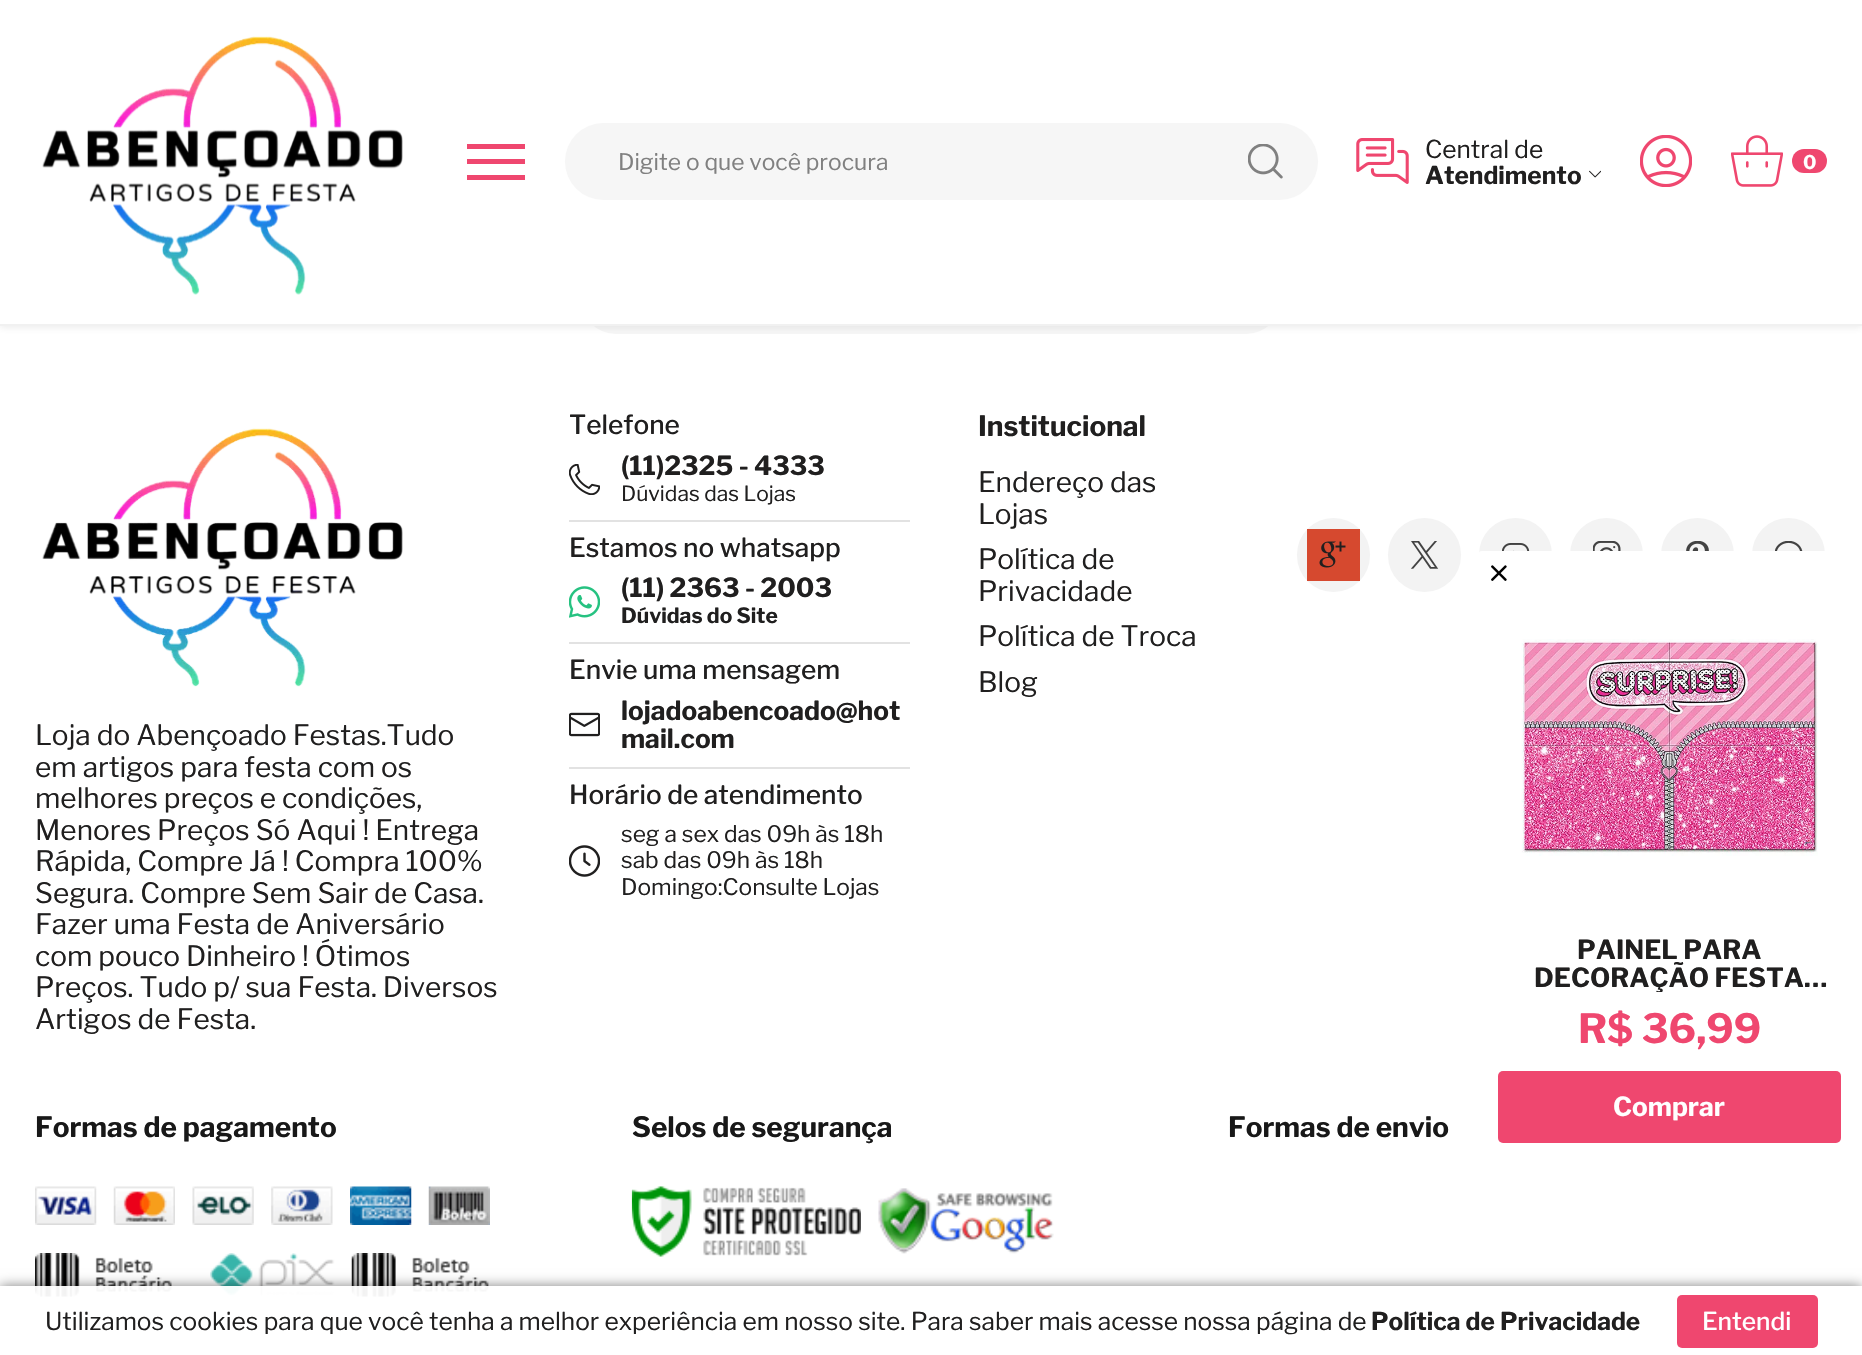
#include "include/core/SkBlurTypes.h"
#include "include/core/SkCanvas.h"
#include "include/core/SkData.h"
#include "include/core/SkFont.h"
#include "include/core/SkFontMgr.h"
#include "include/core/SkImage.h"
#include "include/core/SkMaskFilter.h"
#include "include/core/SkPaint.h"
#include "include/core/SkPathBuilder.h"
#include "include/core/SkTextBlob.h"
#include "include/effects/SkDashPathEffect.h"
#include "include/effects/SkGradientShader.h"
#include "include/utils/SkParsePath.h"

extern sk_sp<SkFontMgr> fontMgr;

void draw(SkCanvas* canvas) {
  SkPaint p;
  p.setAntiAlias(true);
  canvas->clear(SK_ColorWHITE);
  p.setColor(SkColorSetRGB(246, 246, 246));
  canvas->drawRoundRect(SkRect::MakeLTRB(581, 264, 1281, 334), 35, 35, p);
  p.setColor(SkColorSetARGB(33, 82, 82, 82));
  p.setMaskFilter(SkMaskFilter::MakeBlur(kNormal_SkBlurStyle, 3.5f));
  canvas->drawRect(SkRect::MakeLTRB(0, 2, 1862, 327), p);
  p.setMaskFilter(nullptr);
  p.setColor(SK_ColorWHITE);
  canvas->drawRect(SkRect::MakeLTRB(0, 0, 1862, 324), p);
  p.setColor(SkColorSetRGB(241, 241, 241));
  canvas->drawRect(SkRect::MakeLTRB(0, 324, 1862, 326), p);
  canvas->drawImageRect(SkImages::DeferredFromEncodedData(SkData::MakeFromFileName("images/1.png")), SkRect::MakeLTRB(42, 36, 403, 295), SkSamplingOptions());
  p.setColor(SkColorSetRGB(239, 71, 111));
  canvas->drawRect(SkRect::MakeLTRB(467, 175, 525, 180), p);
  canvas->drawRect(SkRect::MakeLTRB(467, 144, 525, 149), p);
  canvas->drawRect(SkRect::MakeLTRB(467, 159, 525, 164), p);
  p.setColor(SkColorSetRGB(246, 246, 246));
  canvas->drawRoundRect(SkRect::MakeLTRB(565, 123, 1318, 200), 38.5f, 38.5f, p);
  canvas->drawImageRect(SkImages::DeferredFromEncodedData(SkData::MakeFromFileName("images/2.png")), SkRect::MakeLTRB(1248, 144, 1283, 179), SkSamplingOptions());
  canvas->drawImageRect(SkImages::DeferredFromEncodedData(SkData::MakeFromFileName("images/3.png")), SkRect::MakeLTRB(1356, 138, 1409, 184), SkSamplingOptions());
  canvas->drawImageRect(SkImages::DeferredFromEncodedData(SkData::MakeFromFileName("images/4.png")), SkRect::MakeLTRB(1589, 170, 1601, 178), SkSamplingOptions());
  canvas->drawImageRect(SkImages::DeferredFromEncodedData(SkData::MakeFromFileName("images/5.png")), SkRect::MakeLTRB(1640, 135, 1692, 187), SkSamplingOptions());
  canvas->drawImageRect(SkImages::DeferredFromEncodedData(SkData::MakeFromFileName("images/6.png")), SkRect::MakeLTRB(1731, 135, 1783, 187), SkSamplingOptions());
  p.setColor(SkColorSetRGB(239, 71, 111));
  canvas->drawRoundRect(SkRect::MakeLTRB(1792, 149, 1827, 173), 12, 12, p);
  p.setColor(SkColorSetRGB(226, 226, 226));
  canvas->drawRect(SkRect::MakeLTRB(569, 520, 910, 522), p);
  canvas->drawImageRect(SkImages::DeferredFromEncodedData(SkData::MakeFromFileName("images/7.png")), SkRect::MakeLTRB(569, 464, 600, 495), SkSamplingOptions());
  canvas->drawRect(SkRect::MakeLTRB(569, 642, 910, 644), p);
  canvas->drawImageRect(SkImages::DeferredFromEncodedData(SkData::MakeFromFileName("images/8.png")), SkRect::MakeLTRB(569, 586, 600, 618), SkSamplingOptions());
  canvas->drawRect(SkRect::MakeLTRB(569, 767, 910, 769), p);
  canvas->drawImageRect(SkImages::DeferredFromEncodedData(SkData::MakeFromFileName("images/9.png")), SkRect::MakeLTRB(569, 712, 600, 737), SkSamplingOptions());
  canvas->drawImageRect(SkImages::DeferredFromEncodedData(SkData::MakeFromFileName("images/10.png")), SkRect::MakeLTRB(569, 845, 600, 877), SkSamplingOptions());
  p.setColor(SkColorSetRGB(243, 243, 243));
  canvas->drawRoundRect(SkRect::MakeLTRB(1297, 518, 1370, 592), 36.5f, 36.5f, p);
  p.setColor(SkColorSetRGB(214, 73, 47));
  canvas->drawRect(SkRect::MakeLTRB(1307, 529, 1360, 581), p);
  canvas->drawImageRect(SkImages::DeferredFromEncodedData(SkData::MakeFromFileName("images/11.png")), SkRect::MakeLTRB(1319, 541, 1346, 568), SkSamplingOptions());
  p.setColor(SkColorSetRGB(243, 243, 243));
  canvas->drawRoundRect(SkRect::MakeLTRB(1388, 518, 1461, 592), 36.5f, 36.5f, p);
  canvas->drawImageRect(SkImages::DeferredFromEncodedData(SkData::MakeFromFileName("images/12.png")), SkRect::MakeLTRB(1411, 541, 1439, 569), SkSamplingOptions());
  canvas->drawRoundRect(SkRect::MakeLTRB(1479, 518, 1552, 592), 36.5f, 36.5f, p);
  canvas->drawImageRect(SkImages::DeferredFromEncodedData(SkData::MakeFromFileName("images/13.png")), SkRect::MakeLTRB(1502, 543, 1530, 551), SkSamplingOptions());
  canvas->drawRoundRect(SkRect::MakeLTRB(1570, 518, 1643, 592), 36.5f, 36.5f, p);
  canvas->drawImageRect(SkImages::DeferredFromEncodedData(SkData::MakeFromFileName("images/14.png")), SkRect::MakeLTRB(1593, 541, 1621, 551), SkSamplingOptions());
  canvas->drawRoundRect(SkRect::MakeLTRB(1661, 518, 1734, 592), 36.5f, 36.5f, p);
  canvas->drawImageRect(SkImages::DeferredFromEncodedData(SkData::MakeFromFileName("images/15.png")), SkRect::MakeLTRB(1686, 541, 1709, 551), SkSamplingOptions());
  canvas->drawRoundRect(SkRect::MakeLTRB(1752, 518, 1825, 592), 36.5f, 36.5f, p);
  canvas->drawImageRect(SkImages::DeferredFromEncodedData(SkData::MakeFromFileName("images/16.png")), SkRect::MakeLTRB(1775, 541, 1803, 551), SkSamplingOptions());
  canvas->drawImageRect(SkImages::DeferredFromEncodedData(SkData::MakeFromFileName("images/17.png")), SkRect::MakeLTRB(42, 428, 403, 687), SkSamplingOptions());
  canvas->drawImageRect(SkImages::DeferredFromEncodedData(SkData::MakeFromFileName("images/18.png")), SkRect::MakeLTRB(35, 1186, 97, 1225), SkSamplingOptions());
  canvas->drawImageRect(SkImages::DeferredFromEncodedData(SkData::MakeFromFileName("images/19.png")), SkRect::MakeLTRB(113, 1186, 175, 1225), SkSamplingOptions());
  canvas->drawImageRect(SkImages::DeferredFromEncodedData(SkData::MakeFromFileName("images/20.png")), SkRect::MakeLTRB(192, 1186, 254, 1225), SkSamplingOptions());
  canvas->drawImageRect(SkImages::DeferredFromEncodedData(SkData::MakeFromFileName("images/21.png")), SkRect::MakeLTRB(271, 1186, 333, 1225), SkSamplingOptions());
  canvas->drawImageRect(SkImages::DeferredFromEncodedData(SkData::MakeFromFileName("images/22.png")), SkRect::MakeLTRB(350, 1186, 412, 1225), SkSamplingOptions());
  canvas->drawImageRect(SkImages::DeferredFromEncodedData(SkData::MakeFromFileName("images/23.png")), SkRect::MakeLTRB(428, 1186, 490, 1225), SkSamplingOptions());
  canvas->drawImageRect(SkImages::DeferredFromEncodedData(SkData::MakeFromFileName("images/24.png")), SkRect::MakeLTRB(35, 1253, 172, 1297), SkSamplingOptions());
  canvas->drawImageRect(SkImages::DeferredFromEncodedData(SkData::MakeFromFileName("images/25.png")), SkRect::MakeLTRB(210, 1253, 335, 1297), SkSamplingOptions());
  canvas->drawImageRect(SkImages::DeferredFromEncodedData(SkData::MakeFromFileName("images/26.png")), SkRect::MakeLTRB(351, 1253, 489, 1297), SkSamplingOptions());
  canvas->drawImageRect(SkImages::DeferredFromEncodedData(SkData::MakeFromFileName("images/27.png")), SkRect::MakeLTRB(631, 1186, 861, 1257), SkSamplingOptions());
  canvas->drawImageRect(SkImages::DeferredFromEncodedData(SkData::MakeFromFileName("images/28.png")), SkRect::MakeLTRB(878, 1188, 1054, 1254), SkSamplingOptions());
  p.setColor(SkColorSetRGB(239, 239, 239));
  canvas->drawRect(SkRect::MakeLTRB(0, 1332, 1862, 1334), p);
  p.setColor(SK_ColorWHITE);
  canvas->drawPath(SkPathBuilder().moveTo(1484, 551).lineTo(1862, 551).lineTo(1862, 1164).lineTo(1484, 1164).cubicTo(1480, 1164, 1477, 1161, 1477, 1157).lineTo(1477, 558).cubicTo(1477, 554, 1480, 551, 1484, 551).close().detach(), p);
  canvas->drawRoundRect(SkRect::MakeLTRB(1477, 551, 1521, 595), 5, 5, p);
  canvas->drawImageRect(SkImages::DeferredFromEncodedData(SkData::MakeFromFileName("images/29.png")), SkRect::MakeLTRB(1491, 565, 1507, 581), SkSamplingOptions());
  canvas->drawImageRect(SkImages::DeferredFromEncodedData(SkData::MakeFromFileName("images/30.png")), SkRect::MakeLTRB(1521, 639, 1818, 856), SkSamplingOptions());
  p.setColor(SkColorSetRGB(239, 71, 111));
  canvas->drawRoundRect(SkRect::MakeLTRB(1498, 1071, 1841, 1143), 5, 5, p);
  canvas->save();
  canvas->clipPath(SkPathBuilder(SkPathFillType::kEvenOdd).moveTo(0, 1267).lineTo(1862, 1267).lineTo(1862, 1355).lineTo(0, 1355).close().moveTo(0, 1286).lineTo(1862, 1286).lineTo(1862, 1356).lineTo(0, 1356).close().detach(), true);
  p.setColor(SkColorSetARGB(128, 0, 0, 0));
  p.setMaskFilter(SkMaskFilter::MakeBlur(kNormal_SkBlurStyle, 6));
  canvas->drawRect(SkRect::MakeLTRB(0, 1286, 1862, 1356), p);
  p.setMaskFilter(nullptr);
  canvas->restore();
  p.setColor(SkColorSetARGB(242, 255, 255, 255));
  canvas->drawRect(SkRect::MakeLTRB(0, 1286, 1862, 1334), p);
  p.setColor(SkColorSetRGB(239, 71, 111));
  canvas->drawRoundRect(SkRect::MakeLTRB(1677, 1295, 1818, 1348), 5, 5, p);
  SkFont font1(fontMgr->matchFamilyStyle("Libre Franklin", SkFontStyle::Normal()), 22.75f);
  font1.setSubpixel(true);
  p.setColor(SkColorSetRGB(128, 128, 128));
  canvas->drawString("Digite o que você procura", 618, 170, font1, p);
  SkFont font2(fontMgr->matchFamilyStyle("Libre Franklin", SkFontStyle::Normal()), 24.5f);
  font2.setSubpixel(true);
  p.setColor(SkColorSetRGB(32, 31, 31));
  canvas->drawString("Central de", 1425, 158, font2, p);
  SkFont font3(fontMgr->matchFamilyStyle("Libre Franklin", SkFontStyle::Bold()), 24.5f);
  font3.setSubpixel(true);
  canvas->drawString("Atendimento", 1425, 184, font3, p);
  SkFont font4(fontMgr->matchFamilyStyle("Libre Franklin", SkFontStyle::Bold()), 19);
  font4.setSubpixel(true);
  p.setColor(SK_ColorWHITE);
  canvas->drawString("0", 1803, 169, font4, p);
  SkFont font5(fontMgr->matchFamilyStyle("Libre Franklin", SkFontStyle(500, SkFontStyle::kNormal_Width, SkFontStyle::kUpright_Slant)), 26.25f);
  font5.setSubpixel(true);
  p.setColor(SkColorSetRGB(32, 31, 31));
  canvas->drawString("Telefone", 569, 434, font5, p);
  SkFont font6(fontMgr->matchFamilyStyle("Libre Franklin", SkFontStyle::Bold()), 26.25f);
  font6.setSubpixel(true);
  canvas->drawString("(11)2325 - 4333", 621, 475, font6, p);
  SkFont font7(fontMgr->matchFamilyStyle("Libre Franklin", SkFontStyle::Normal()), 21);
  font7.setSubpixel(true);
  canvas->drawString("Dúvidas das Lojas", 621, 501, font7, p);
  canvas->drawString("Estamos no whatsapp", 569, 557, font5, p);
  canvas->drawString("(11) 2363 - 2003", 621, 597, font6, p);
  SkFont font8(fontMgr->matchFamilyStyle("Libre Franklin", SkFontStyle::Bold()), 21);
  font8.setSubpixel(true);
  canvas->drawString("Dúvidas do Site", 621, 623, font8, p);
  canvas->drawString("Envie uma mensagem", 569, 679, font5, p);
  canvas->drawString("lojadoabencoado@hot", 621, 720, font6, p);
  canvas->drawString("mail.com", 621, 748, font6, p);
  canvas->drawString("Horário de atendimento", 569, 804, font5, p);
  canvas->drawString("seg a sex das 09h às 18h", 621, 842, font1, p);
  canvas->drawString("sab das 09h às 18h", 621, 868, font1, p);
  canvas->drawString("Domingo:Consulte Lojas", 621, 895, font1, p);
  SkFont font9(fontMgr->matchFamilyStyle("Libre Franklin", SkFontStyle::Bold()), 28);
  font9.setSubpixel(true);
  canvas->drawString("Institucional", 978, 436, font9, p);
  SkFont font10(fontMgr->matchFamilyStyle("Libre Franklin", SkFontStyle::Normal()), 28);
  font10.setSubpixel(true);
  canvas->drawString("Endereço das", 978, 492, font10, p);
  canvas->drawString("Lojas", 978, 524, font10, p);
  canvas->drawString("Política de", 978, 569, font10, p);
  canvas->drawString("Privacidade", 978, 601, font10, p);
  canvas->drawString("Política de Troca", 978, 646, font10, p);
  canvas->drawString("Blog", 978, 692, font10, p);
  canvas->drawString("Loja do Abençoado Festas.Tudo", 35, 745, font10, p);
  canvas->drawString("em artigos para festa com os", 35, 777, font10, p);
  canvas->drawString("melhores preços e condições,", 35, 808, font10, p);
  canvas->drawString("Menores Preços Só Aqui ! Entrega", 35, 840, font10, p);
  canvas->drawString("Rápida, Compre Já ! Compra 100%", 35, 871, font10, p);
  canvas->drawString("Segura. Compre Sem Sair de Casa.", 35, 903, font10, p);
  canvas->drawString("Fazer uma Festa de Aniversário", 35, 934, font10, p);
  canvas->drawString("com pouco Dinheiro ! Ótimos", 35, 966, font10, p);
  canvas->drawString("Preços. Tudo p/ sua Festa. Diversos", 35, 997, font10, p);
  canvas->drawString("Artigos de Festa.", 35, 1029, font10, p);
  p.setColor(SkColorSetRGB(24, 24, 24));
  canvas->drawString("Formas de pagamento", 35, 1137, font9, p);
  canvas->drawString("Selos de segurança", 632, 1137, font9, p);
  canvas->drawString("Formas de envio", 1228, 1137, font9, p);
  p.setColor(SkColorSetRGB(32, 31, 31));
  canvas->drawString("PAINEL PARA", 1577, 959, font6, p);
  canvas->save();
  canvas->clipRect(SkRect::MakeLTRB(1498, 936, 1841, 992));
  canvas->drawString("DECORAÇÃO FESTA…", 1534, 987, font6, p);
  canvas->restore();
  SkFont font11(fontMgr->matchFamilyStyle("Libre Franklin", SkFontStyle::Bold()), 40.25f);
  font11.setSubpixel(true);
  p.setColor(SkColorSetRGB(239, 71, 111));
  canvas->drawString("R$ 36,99", 1578, 1043, font11, p);
  p.setColor(SK_ColorWHITE);
  canvas->drawString("Comprar", 1613, 1116, font6, p);
  p.setColor(SkColorSetRGB(32, 31, 31));
  canvas->drawString("Utilizamos cookies para que você tenha a melhor experiência em nosso site. Para saber mais acesse nossa página de", 45, 1330, font2, p);
  canvas->drawString("Política de Privacidade", 1371, 1330, font3, p);
  SkFont font12(fontMgr->matchFamilyStyle("Libre Franklin", SkFontStyle(500, SkFontStyle::kNormal_Width, SkFontStyle::kUpright_Slant)), 24.5f);
  font12.setSubpixel(true);
  p.setColor(SK_ColorWHITE);
  canvas->drawString("Entendi", 1702, 1330, font12, p);
}
